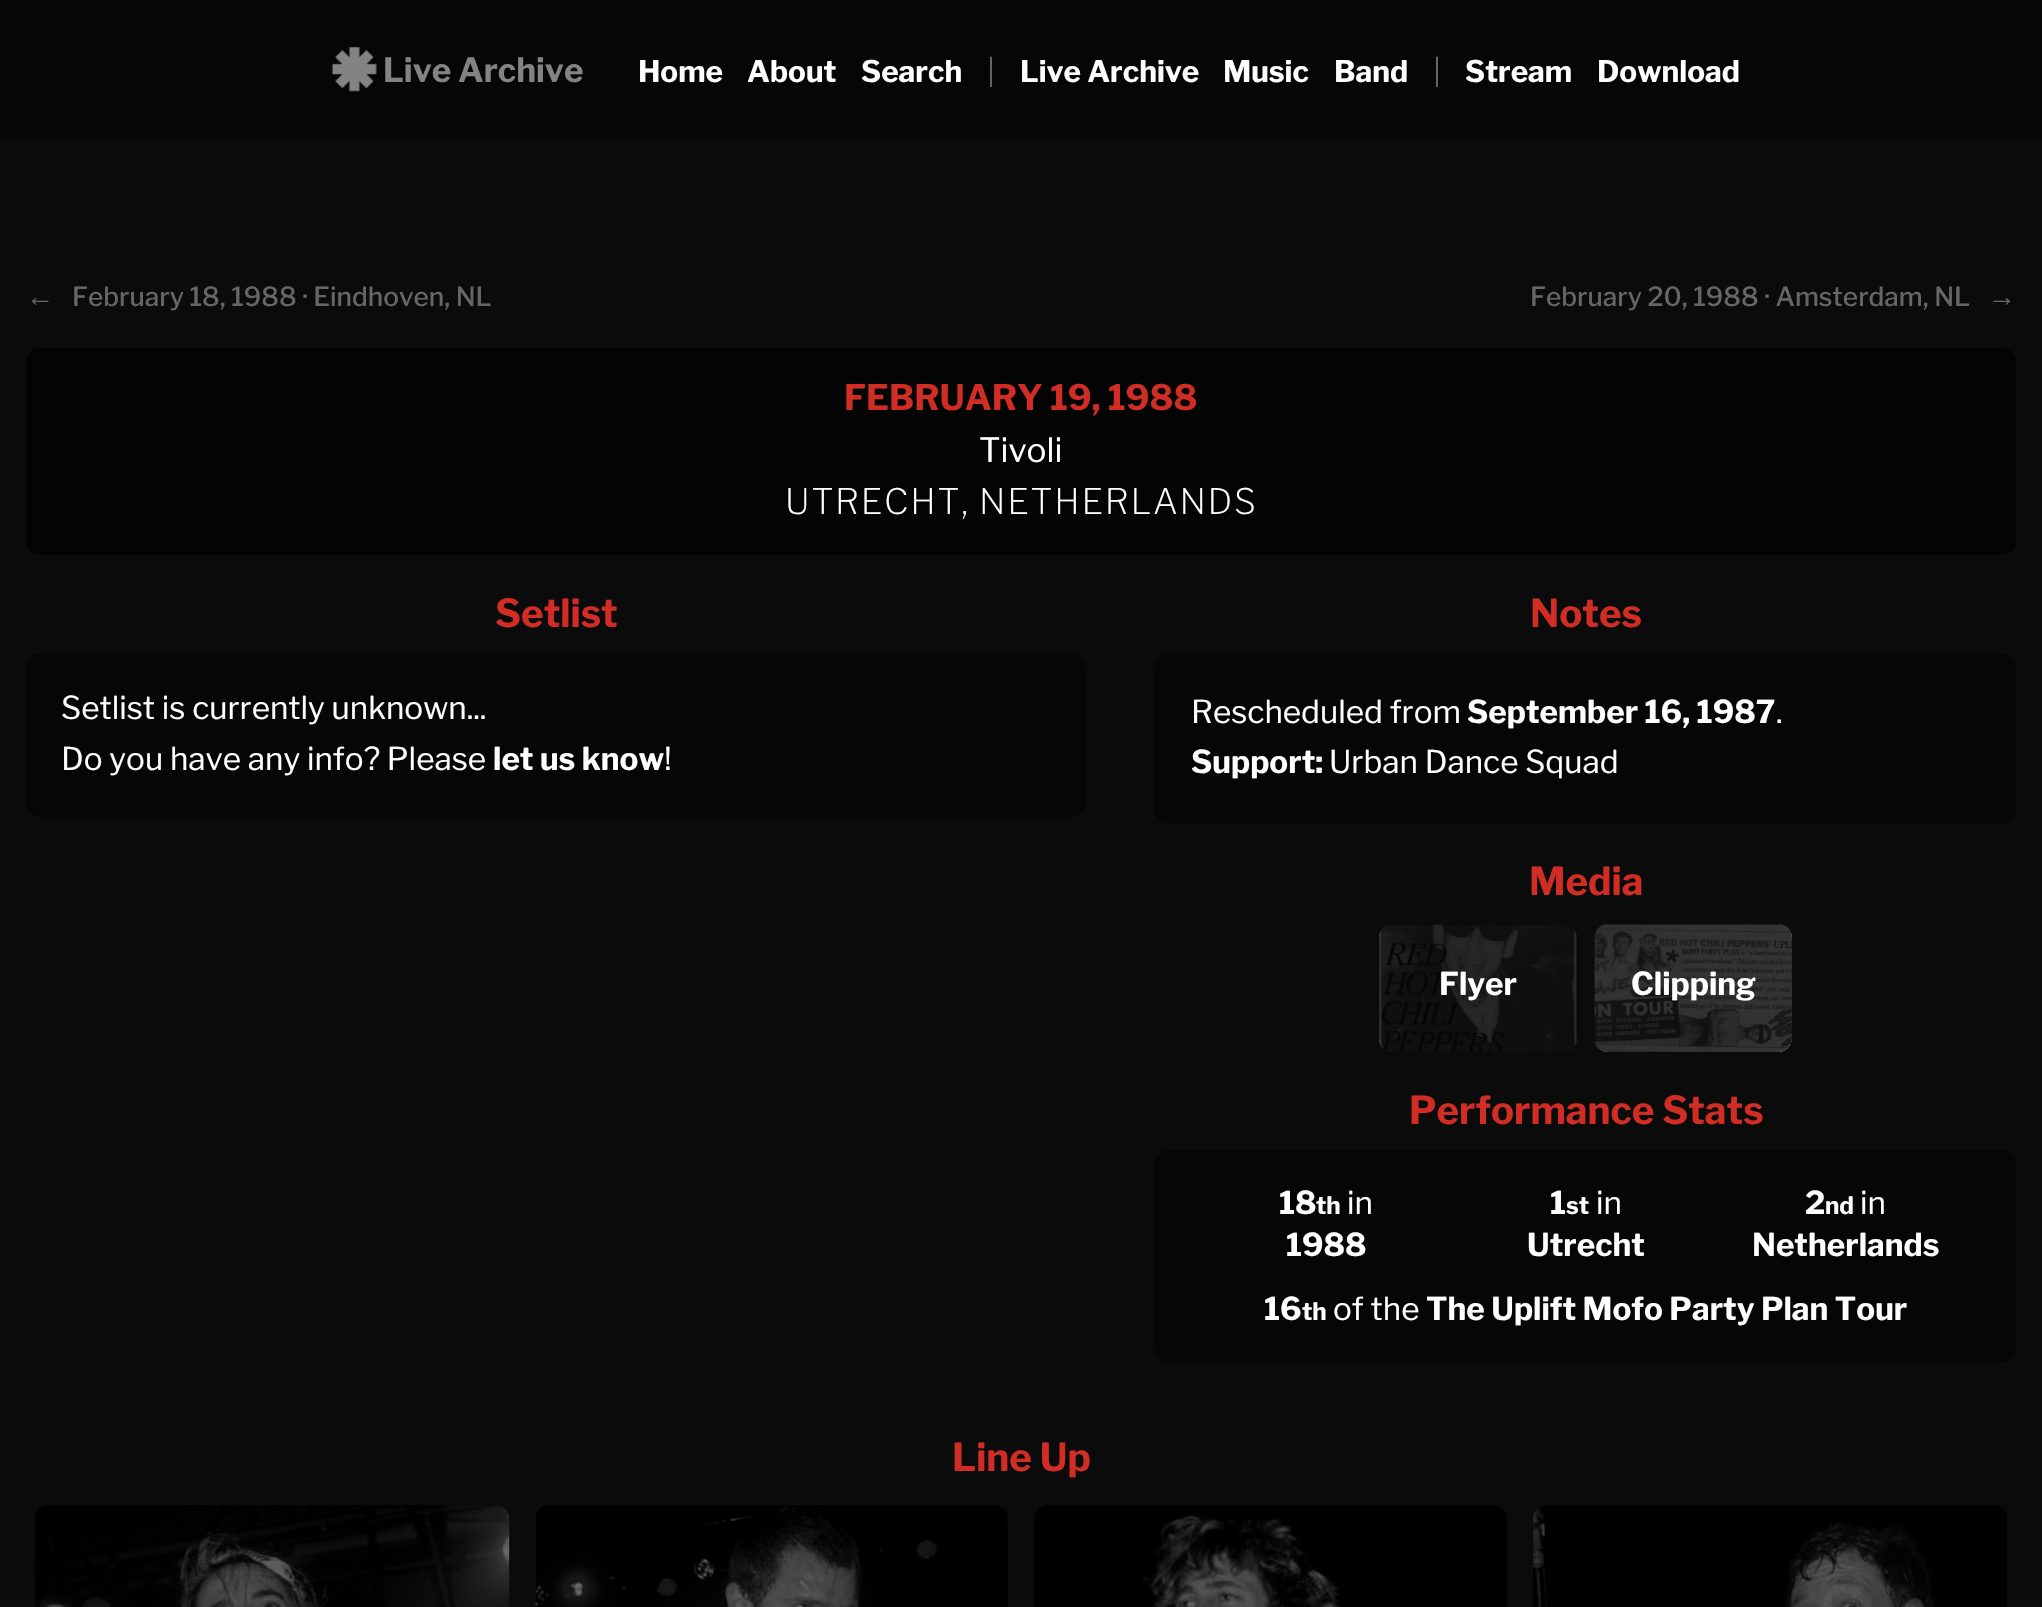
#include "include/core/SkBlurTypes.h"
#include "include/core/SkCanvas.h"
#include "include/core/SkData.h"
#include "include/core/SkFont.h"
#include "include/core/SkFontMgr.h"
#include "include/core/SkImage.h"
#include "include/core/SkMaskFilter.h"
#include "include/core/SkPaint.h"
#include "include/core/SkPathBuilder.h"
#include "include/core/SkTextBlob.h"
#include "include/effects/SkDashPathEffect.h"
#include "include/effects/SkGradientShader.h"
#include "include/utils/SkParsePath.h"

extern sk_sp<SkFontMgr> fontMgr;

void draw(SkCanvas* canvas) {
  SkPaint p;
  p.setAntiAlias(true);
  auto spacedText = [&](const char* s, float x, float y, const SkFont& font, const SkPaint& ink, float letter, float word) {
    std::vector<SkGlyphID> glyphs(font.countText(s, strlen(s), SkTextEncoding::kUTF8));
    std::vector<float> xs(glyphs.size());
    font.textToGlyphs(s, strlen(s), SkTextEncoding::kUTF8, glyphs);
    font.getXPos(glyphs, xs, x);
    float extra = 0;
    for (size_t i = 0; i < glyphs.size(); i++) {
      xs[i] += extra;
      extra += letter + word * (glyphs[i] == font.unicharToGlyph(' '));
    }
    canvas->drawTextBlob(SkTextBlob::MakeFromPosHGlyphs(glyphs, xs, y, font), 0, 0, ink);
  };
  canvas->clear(SkColorSetRGB(11, 11, 11));
  p.setColor(SkColorSetRGB(6, 6, 6));
  canvas->drawRect(SkRect::MakeLTRB(0, 0, 2042, 140), p);
  canvas->drawImageRect(SkImages::DeferredFromEncodedData(SkData::MakeFromFileName("images/1.png")), SkRect::MakeLTRB(331, 47, 377, 92), SkSamplingOptions());
  p.setColor(SkColorSetRGB(4, 4, 4));
  canvas->drawRoundRect(SkRect::MakeLTRB(26, 348, 2016, 555), 14, 14, p);
  p.setColor(SkColorSetRGB(6, 6, 6));
  canvas->drawRoundRect(SkRect::MakeLTRB(26, 653, 1085, 817), 14, 14, p);
  canvas->drawRoundRect(SkRect::MakeLTRB(1155, 653, 2016, 824), 14, 14, p);
  canvas->drawImageRect(SkImages::DeferredFromEncodedData(SkData::MakeFromFileName("images/2.png")), SkRect::MakeLTRB(1379, 924, 1577, 1052), SkSamplingOptions());
  p.setColor(SkColorSetARGB(204, 0, 0, 0));
  canvas->drawRoundRect(SkRect::MakeLTRB(1379, 924, 1577, 1052), 14, 14, p);
  canvas->drawImageRect(SkImages::DeferredFromEncodedData(SkData::MakeFromFileName("images/3.png")), SkRect::MakeLTRB(1594, 924, 1792, 1052), SkSamplingOptions());
  canvas->drawRoundRect(SkRect::MakeLTRB(1594, 924, 1792, 1052), 14, 14, p);
  p.setColor(SkColorSetRGB(6, 6, 6));
  canvas->drawRoundRect(SkRect::MakeLTRB(1155, 1150, 2016, 1363), 14, 14, p);
  canvas->drawImageRect(SkImages::DeferredFromEncodedData(SkData::MakeFromFileName("images/4.png")), SkRect::MakeLTRB(35, 1505, 510, 1607), SkSamplingOptions());
  p.setColor(SkColorSetARGB(153, 0, 0, 0));
  canvas->drawRoundRect(SkRect::MakeLTRB(35, 1505, 509, 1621), 14, 14, p);
  canvas->drawImageRect(SkImages::DeferredFromEncodedData(SkData::MakeFromFileName("images/5.png")), SkRect::MakeLTRB(535, 1505, 1008, 1607), SkSamplingOptions());
  canvas->drawRoundRect(SkRect::MakeLTRB(536, 1505, 1008, 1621), 14, 14, p);
  canvas->drawImageRect(SkImages::DeferredFromEncodedData(SkData::MakeFromFileName("images/6.png")), SkRect::MakeLTRB(1034, 1505, 1507, 1607), SkSamplingOptions());
  canvas->drawRoundRect(SkRect::MakeLTRB(1034, 1505, 1507, 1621), 14, 14, p);
  canvas->drawImageRect(SkImages::DeferredFromEncodedData(SkData::MakeFromFileName("images/7.png")), SkRect::MakeLTRB(1533, 1505, 2007, 1607), SkSamplingOptions());
  canvas->drawRoundRect(SkRect::MakeLTRB(1533, 1505, 2007, 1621), 14, 14, p);
  SkFont font1(fontMgr->matchFamilyStyle("Libre Franklin", SkFontStyle::Bold()), 33.25f);
  font1.setSubpixel(true);
  p.setColor(SkColorSetRGB(131, 131, 131));
  canvas->drawString("Live Archive", 383, 82, font1, p);
  SkFont font2(fontMgr->matchFamilyStyle("Libre Franklin", SkFontStyle::Bold()), 29.75f);
  font2.setSubpixel(true);
  p.setColor(SK_ColorWHITE);
  canvas->drawString("Home", 638, 82, font2, p);
  canvas->drawString("About", 747, 82, font2, p);
  canvas->drawString("Search", 861, 82, font2, p);
  SkFont font3(fontMgr->matchFamilyStyle("Libre Franklin", SkFontStyle(200, SkFontStyle::kNormal_Width, SkFontStyle::kUpright_Slant)), 29.75f);
  font3.setSubpixel(true);
  p.setColor(SkColorSetRGB(131, 131, 131));
  canvas->drawString("|", 987, 82, font3, p);
  p.setColor(SK_ColorWHITE);
  canvas->drawString("Live Archive", 1020, 82, font2, p);
  canvas->drawString("Music", 1223, 82, font2, p);
  canvas->drawString("Band", 1334, 82, font2, p);
  p.setColor(SkColorSetRGB(131, 131, 131));
  canvas->drawString("|", 1433, 82, font3, p);
  p.setColor(SK_ColorWHITE);
  canvas->drawString("Stream", 1465, 82, font2, p);
  canvas->drawString("Download", 1597, 82, font2, p);
  SkFont font4(fontMgr->matchFamilyStyle("Liberation Sans", SkFontStyle::Bold()), 28);
  font4.setSubpixel(true);
  p.setColor(SkColorSetRGB(102, 102, 102));
  canvas->drawString("←", 26, 306, font4, p);
  SkFont font5(fontMgr->matchFamilyStyle("Libre Franklin", SkFontStyle(500, SkFontStyle::kNormal_Width, SkFontStyle::kUpright_Slant)), 26.25f);
  font5.setSubpixel(true);
  canvas->drawString("February 18, 1988 · Eindhoven, NL", 72, 306, font5, p);
  canvas->drawString("February 20, 1988 · Amsterdam, NL", 1530, 306, font5, p);
  canvas->drawString("→", 1988, 306, font4, p);
  SkFont font6(fontMgr->matchFamilyStyle("Libre Franklin", SkFontStyle::Bold()), 35);
  font6.setSubpixel(true);
  p.setColor(SkColorSetRGB(209, 45, 36));
  canvas->drawString("FEBRUARY 19, 1988", 844, 410, font6, p);
  SkFont font7(fontMgr->matchFamilyStyle("Libre Franklin", SkFontStyle::Normal()), 33.25f);
  font7.setSubpixel(true);
  p.setColor(SK_ColorWHITE);
  canvas->drawString("Tivoli", 979, 462, font7, p);
  SkFont font8(fontMgr->matchFamilyStyle("Libre Franklin", SkFontStyle(200, SkFontStyle::kNormal_Width, SkFontStyle::kUpright_Slant)), 35);
  font8.setSubpixel(true);
  spacedText("UTRECHT, NETHERLANDS", 785, 514, font8, p, 1.75f, 0);
  SkFont font9(fontMgr->matchFamilyStyle("Libre Franklin", SkFontStyle::Bold()), 38.5f);
  font9.setSubpixel(true);
  p.setColor(SkColorSetRGB(209, 45, 36));
  canvas->drawString("Setlist", 495, 627, font9, p);
  SkFont font10(fontMgr->matchFamilyStyle("Libre Franklin", SkFontStyle::Normal()), 31.5f);
  font10.setSubpixel(true);
  p.setColor(SK_ColorWHITE);
  canvas->drawString("Setlist is currently unknown...", 61, 719, font10, p);
  canvas->drawString("Do you have any info? Please", 61, 770, font10, p);
  SkFont font11(fontMgr->matchFamilyStyle("Libre Franklin", SkFontStyle::Bold()), 31.5f);
  font11.setSubpixel(true);
  canvas->drawString("let us know", 493, 770, font11, p);
  canvas->drawString("!", 664, 770, font10, p);
  p.setColor(SkColorSetRGB(209, 45, 36));
  canvas->drawString("Notes", 1530, 627, font9, p);
  p.setColor(SK_ColorWHITE);
  canvas->drawString("Rescheduled from", 1191, 723, font10, p);
  canvas->drawString("September 16, 1987", 1467, 723, font11, p);
  canvas->drawString(".", 1776, 723, font10, p);
  canvas->drawString("Support:", 1191, 773, font11, p);
  canvas->drawString("Urban Dance Squad", 1329, 773, font10, p);
  p.setColor(SkColorSetRGB(209, 45, 36));
  canvas->drawString("Media", 1529, 895, font9, p);
  p.setColor(SK_ColorWHITE);
  canvas->drawString("Flyer", 1439, 995, font11, p);
  canvas->drawString("Clipping", 1631, 995, font11, p);
  p.setColor(SkColorSetRGB(209, 45, 36));
  canvas->drawString("Performance Stats", 1409, 1124, font9, p);
  p.setColor(SK_ColorWHITE);
  canvas->drawString("18", 1279, 1214, font11, p);
  SkFont font12(fontMgr->matchFamilyStyle("Libre Franklin", SkFontStyle::Bold()), 24);
  font12.setSubpixel(true);
  canvas->drawString("th", 1316, 1214, font12, p);
  canvas->drawString("in", 1347, 1214, font10, p);
  canvas->drawString("1988", 1286, 1256, font11, p);
  canvas->drawString("1", 1550, 1214, font11, p);
  canvas->drawString("st", 1566, 1214, font12, p);
  canvas->drawString("in", 1596, 1214, font10, p);
  canvas->drawString("Utrecht", 1527, 1256, font11, p);
  canvas->drawString("2", 1805, 1214, font11, p);
  canvas->drawString("nd", 1825, 1214, font12, p);
  canvas->drawString("in", 1860, 1214, font10, p);
  canvas->drawString("Netherlands", 1752, 1256, font11, p);
  canvas->drawString("16", 1264, 1320, font11, p);
  canvas->drawString("th", 1302, 1320, font12, p);
  canvas->drawString("of the", 1333, 1320, font10, p);
  canvas->drawString("The Uplift Mofo Party Plan Tour", 1426, 1320, font11, p);
  p.setColor(SkColorSetRGB(209, 45, 36));
  canvas->drawString("Line Up", 952, 1471, font9, p);
}
